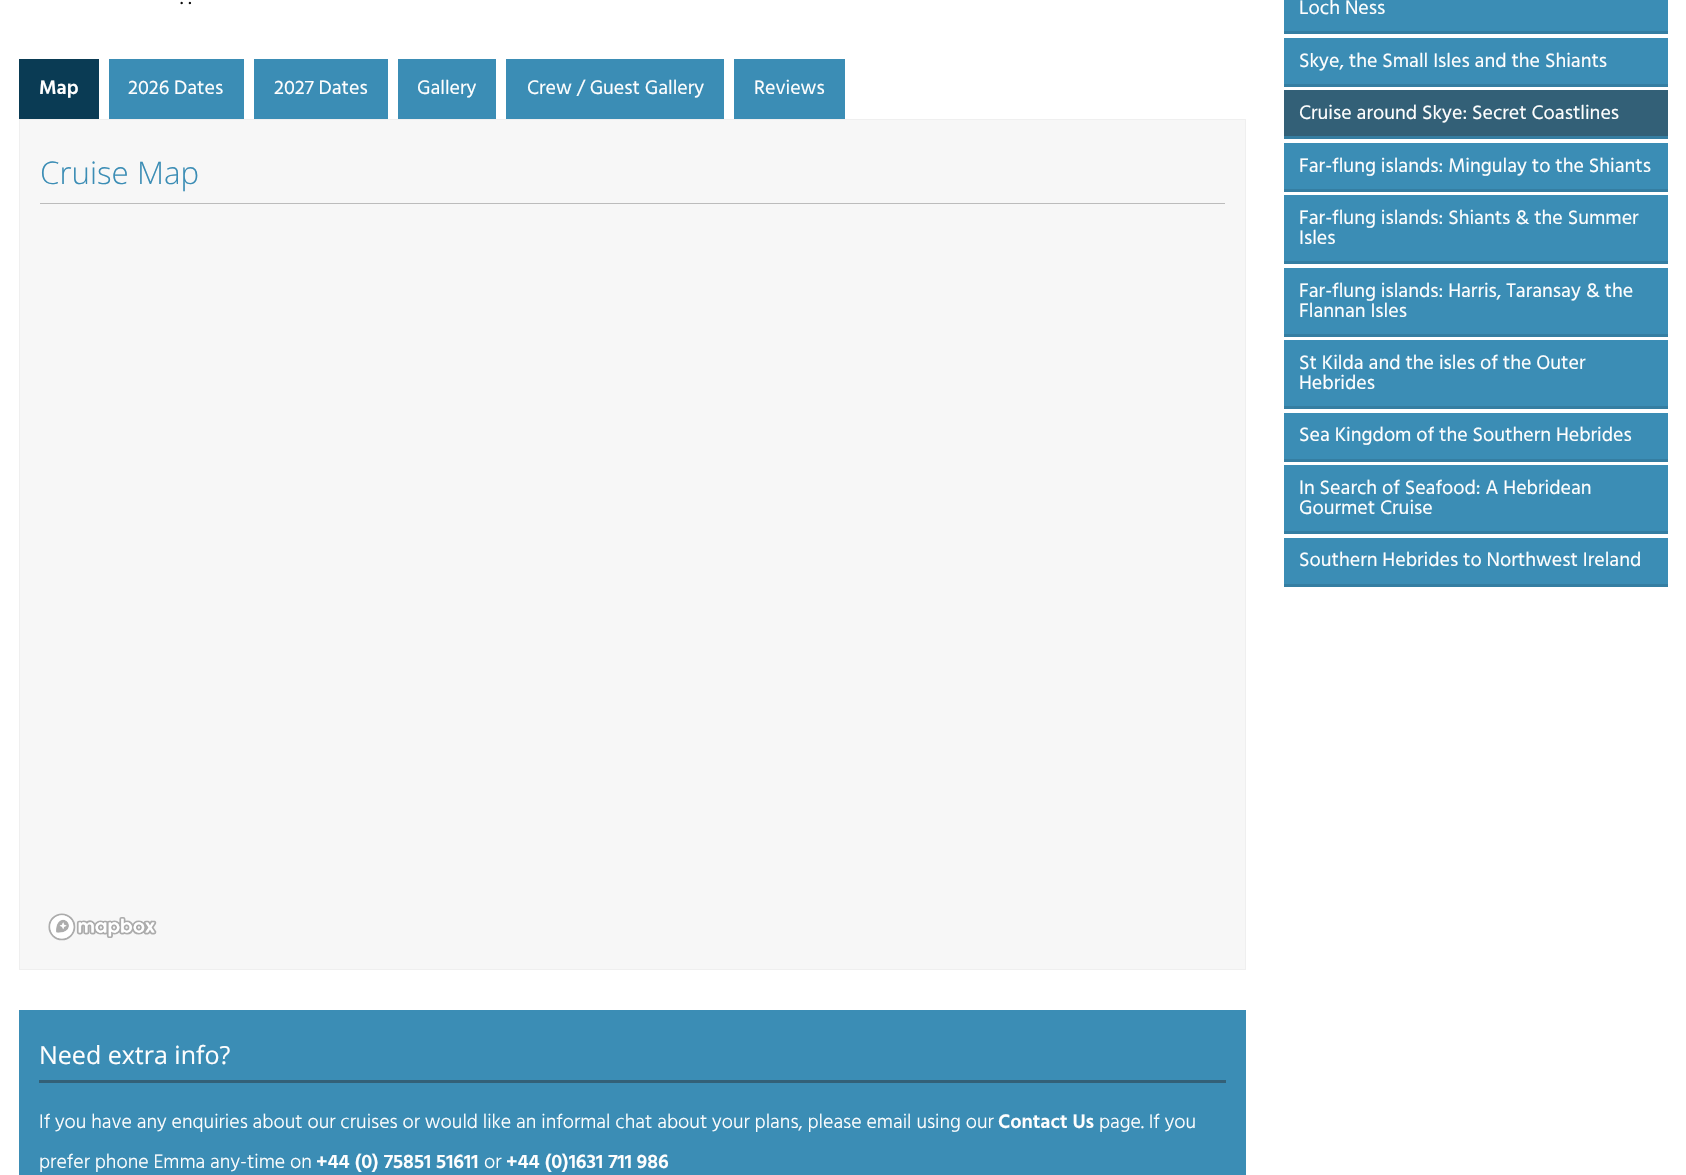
#include "include/core/SkBlurTypes.h"
#include "include/core/SkCanvas.h"
#include "include/core/SkData.h"
#include "include/core/SkFont.h"
#include "include/core/SkFontMgr.h"
#include "include/core/SkImage.h"
#include "include/core/SkMaskFilter.h"
#include "include/core/SkPaint.h"
#include "include/core/SkPathBuilder.h"
#include "include/core/SkTextBlob.h"
#include "include/effects/SkDashPathEffect.h"
#include "include/effects/SkGradientShader.h"
#include "include/utils/SkParsePath.h"

extern sk_sp<SkFontMgr> fontMgr;

void draw(SkCanvas* canvas) {
  SkPaint p;
  p.setAntiAlias(true);
  canvas->clear(SK_ColorWHITE);
  p.setColor(SkColorSetRGB(239, 239, 239));
  canvas->drawRect(SkRect::MakeLTRB(19, 119, 1246, 120), p);
  p.setColor(SkColorSetRGB(10, 59, 84));
  canvas->drawRect(SkRect::MakeLTRB(19, 59, 99, 119), p);
  p.setColor(SkColorSetRGB(59, 141, 181));
  canvas->drawRect(SkRect::MakeLTRB(109, 59, 244, 119), p);
  canvas->drawRect(SkRect::MakeLTRB(254, 59, 388, 119), p);
  canvas->drawRect(SkRect::MakeLTRB(398, 59, 496, 119), p);
  canvas->drawRect(SkRect::MakeLTRB(506, 59, 724, 119), p);
  canvas->drawRect(SkRect::MakeLTRB(734, 59, 845, 119), p);
  p.setColor(SkColorSetRGB(247, 247, 247));
  canvas->drawRect(SkRect::MakeLTRB(20, 120, 1245, 969), p);
  p.setColor(SkColorSetRGB(239, 239, 239));
  canvas->drawRect(SkRect::MakeLTRB(1245, 120, 1246, 970), p);
  canvas->drawRect(SkRect::MakeLTRB(19, 969, 1246, 970), p);
  canvas->drawRect(SkRect::MakeLTRB(19, 120, 20, 970), p);
  p.setColor(SkColorSetRGB(188, 188, 188));
  canvas->drawRect(SkRect::MakeLTRB(40, 203, 1225, 204), p);
  canvas->drawImageRect(SkImages::DeferredFromEncodedData(SkData::MakeFromFileName("images/1.png")), SkRect::MakeLTRB(48, 913, 157, 941), SkSamplingOptions());
  p.setColor(SkColorSetRGB(59, 141, 181));
  canvas->drawRect(SkRect::MakeLTRB(19, 1010, 1246, 1175), p);
  p.setColor(SkColorSetRGB(51, 96, 119));
  canvas->drawRect(SkRect::MakeLTRB(39, 1080, 1226, 1083), p);
  p.setColor(SkColorSetRGB(59, 141, 181));
  canvas->drawRect(SkRect::MakeLTRB(1284, 0, 1668, 31), p);
  p.setColor(SkColorSetRGB(53, 126, 162));
  canvas->drawRect(SkRect::MakeLTRB(1284, 31, 1668, 34), p);
  p.setColor(SkColorSetRGB(59, 141, 181));
  canvas->drawRect(SkRect::MakeLTRB(1284, 38, 1668, 84), p);
  p.setColor(SkColorSetRGB(53, 126, 162));
  canvas->drawRect(SkRect::MakeLTRB(1284, 84, 1668, 87), p);
  p.setColor(SkColorSetRGB(51, 96, 119));
  canvas->drawRect(SkRect::MakeLTRB(1284, 90, 1668, 136), p);
  p.setColor(SkColorSetRGB(53, 126, 162));
  canvas->drawRect(SkRect::MakeLTRB(1284, 136, 1668, 139), p);
  p.setColor(SkColorSetRGB(59, 141, 181));
  canvas->drawRect(SkRect::MakeLTRB(1284, 143, 1668, 189), p);
  p.setColor(SkColorSetRGB(53, 126, 162));
  canvas->drawRect(SkRect::MakeLTRB(1284, 189, 1668, 192), p);
  p.setColor(SkColorSetRGB(59, 141, 181));
  canvas->drawRect(SkRect::MakeLTRB(1284, 195, 1668, 261), p);
  p.setColor(SkColorSetRGB(53, 126, 162));
  canvas->drawRect(SkRect::MakeLTRB(1284, 261, 1668, 264), p);
  p.setColor(SkColorSetRGB(59, 141, 181));
  canvas->drawRect(SkRect::MakeLTRB(1284, 268, 1668, 334), p);
  p.setColor(SkColorSetRGB(53, 126, 162));
  canvas->drawRect(SkRect::MakeLTRB(1284, 334, 1668, 337), p);
  p.setColor(SkColorSetRGB(59, 141, 181));
  canvas->drawRect(SkRect::MakeLTRB(1284, 340, 1668, 406), p);
  p.setColor(SkColorSetRGB(53, 126, 162));
  canvas->drawRect(SkRect::MakeLTRB(1284, 406, 1668, 409), p);
  p.setColor(SkColorSetRGB(59, 141, 181));
  canvas->drawRect(SkRect::MakeLTRB(1284, 413, 1668, 459), p);
  p.setColor(SkColorSetRGB(53, 126, 162));
  canvas->drawRect(SkRect::MakeLTRB(1284, 459, 1668, 462), p);
  p.setColor(SkColorSetRGB(59, 141, 181));
  canvas->drawRect(SkRect::MakeLTRB(1284, 465, 1668, 531), p);
  p.setColor(SkColorSetRGB(53, 126, 162));
  canvas->drawRect(SkRect::MakeLTRB(1284, 531, 1668, 534), p);
  p.setColor(SkColorSetRGB(59, 141, 181));
  canvas->drawRect(SkRect::MakeLTRB(1284, 538, 1668, 584), p);
  p.setColor(SkColorSetRGB(53, 126, 162));
  canvas->drawRect(SkRect::MakeLTRB(1284, 584, 1668, 587), p);
  SkFont font1(fontMgr->matchFamilyStyle("Hind", SkFontStyle::Normal()), 20);
  font1.setSubpixel(true);
  p.setColor(SkColorSetRGB(10, 10, 10));
  canvas->drawString(". .", 180, 4, font1, p);
  SkFont font2(fontMgr->matchFamilyStyle("Hind", SkFontStyle(600, SkFontStyle::kNormal_Width, SkFontStyle::kUpright_Slant)), 20);
  font2.setSubpixel(true);
  p.setColor(SkColorSetRGB(254, 254, 254));
  canvas->drawString("Map", 39, 94, font2, p);
  canvas->drawString("2026 Dates", 128, 94, font1, p);
  canvas->drawString("2027 Dates", 274, 94, font1, p);
  canvas->drawString("Gallery", 417, 94, font1, p);
  canvas->drawString("Crew / Guest Gallery", 527, 94, font1, p);
  canvas->drawString("Reviews", 754, 94, font1, p);
  SkFont font3(fontMgr->matchFamilyStyle("Open Sans", SkFontStyle(300, SkFontStyle::kNormal_Width, SkFontStyle::kUpright_Slant)), 31.25f);
  font3.setSubpixel(true);
  p.setColor(SkColorSetRGB(59, 141, 181));
  canvas->drawString("Cruise Map", 40, 184, font3, p);
  SkFont font4(fontMgr->matchFamilyStyle("Open Sans", SkFontStyle::Normal()), 25);
  font4.setSubpixel(true);
  p.setColor(SkColorSetRGB(254, 254, 254));
  canvas->drawString("Need extra info?", 39, 1064, font4, p);
  SkFont font5(fontMgr->matchFamilyStyle("Hind", SkFontStyle(300, SkFontStyle::kNormal_Width, SkFontStyle::kUpright_Slant)), 20);
  font5.setSubpixel(true);
  canvas->drawString("If you have any enquiries about our cruises or would like an informal chat about your plans, please email using our", 39, 1128, font5, p);
  canvas->drawString("Contact Us", 998, 1128, font2, p);
  canvas->drawString("page. If you", 1099, 1128, font5, p);
  canvas->drawString("prefer phone Emma any-time on", 39, 1168, font5, p);
  canvas->drawString("+44 (0) 75851 51611", 316, 1168, font2, p);
  canvas->drawString("or", 484, 1168, font5, p);
  canvas->drawString("+44 (0)1631 711 986", 506, 1168, font2, p);
  canvas->drawString("Loch Ness", 1299, 14, font1, p);
  canvas->drawString("Skye, the Small Isles and the Shiants", 1299, 67, font1, p);
  canvas->drawString("Cruise around Skye: Secret Coastlines", 1299, 119, font1, p);
  canvas->drawString("Far-flung islands: Mingulay to the Shiants", 1299, 172, font1, p);
  canvas->drawString("Far-flung islands: Shiants & the Summer", 1299, 224, font1, p);
  canvas->drawString("Isles", 1299, 244, font1, p);
  canvas->drawString("Far-flung islands: Harris, Taransay & the", 1299, 297, font1, p);
  canvas->drawString("Flannan Isles", 1299, 317, font1, p);
  canvas->drawString("St Kilda and the isles of the Outer", 1299, 369, font1, p);
  canvas->drawString("Hebrides", 1299, 389, font1, p);
  canvas->drawString("Sea Kingdom of the Southern Hebrides", 1299, 441, font1, p);
  canvas->drawString("In Search of Seafood: A Hebridean", 1299, 494, font1, p);
  canvas->drawString("Gourmet Cruise", 1299, 514, font1, p);
  canvas->drawString("Southern Hebrides to Northwest Ireland", 1299, 566, font1, p);
}
